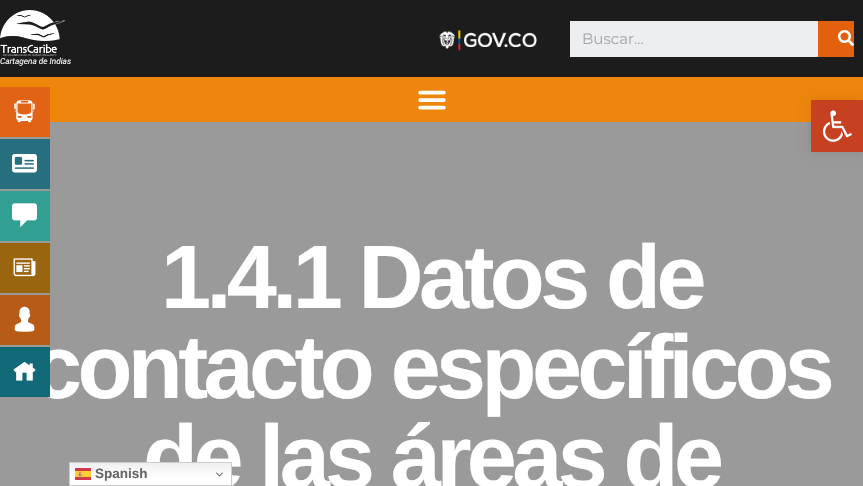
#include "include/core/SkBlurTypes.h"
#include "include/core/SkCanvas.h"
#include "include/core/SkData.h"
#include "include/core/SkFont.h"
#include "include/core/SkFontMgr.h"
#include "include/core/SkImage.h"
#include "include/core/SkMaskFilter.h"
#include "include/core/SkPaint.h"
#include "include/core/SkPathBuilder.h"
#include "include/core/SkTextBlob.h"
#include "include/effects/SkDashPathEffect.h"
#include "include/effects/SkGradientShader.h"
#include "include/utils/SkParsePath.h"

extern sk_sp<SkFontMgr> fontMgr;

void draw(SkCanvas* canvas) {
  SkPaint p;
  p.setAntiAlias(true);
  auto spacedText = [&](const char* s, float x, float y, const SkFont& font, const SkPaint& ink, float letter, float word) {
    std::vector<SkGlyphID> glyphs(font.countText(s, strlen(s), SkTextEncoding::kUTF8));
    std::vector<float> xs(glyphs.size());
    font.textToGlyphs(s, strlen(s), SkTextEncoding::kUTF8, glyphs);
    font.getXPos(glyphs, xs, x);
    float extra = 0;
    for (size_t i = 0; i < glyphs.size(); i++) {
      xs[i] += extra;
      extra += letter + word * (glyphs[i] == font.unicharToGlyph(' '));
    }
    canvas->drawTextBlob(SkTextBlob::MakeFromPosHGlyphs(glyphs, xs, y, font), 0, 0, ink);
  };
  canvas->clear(SkColorSetRGB(28, 28, 28));
  canvas->drawImageRect(SkImages::DeferredFromEncodedData(SkData::MakeFromFileName("images/1.png")), SkRect::MakeLTRB(439, 30, 537, 51), SkSamplingOptions());
  p.setColor(SkColorSetRGB(236, 238, 239));
  canvas->drawRect(SkRect::MakeLTRB(570, 21, 818, 57), p);
  p.setColor(SkColorSetRGB(227, 96, 15));
  canvas->drawRect(SkRect::MakeLTRB(818, 21, 854, 57), p);
  canvas->drawImageRect(SkImages::DeferredFromEncodedData(SkData::MakeFromFileName("images/2.png")), SkRect::MakeLTRB(838, 30, 854, 46), SkSamplingOptions());
  canvas->drawImageRect(SkImages::DeferredFromEncodedData(SkData::MakeFromFileName("images/3.png")), SkRect::MakeLTRB(0, 10, 65, 56), SkSamplingOptions());
  p.setColor(SkColorSetRGB(238, 134, 11));
  canvas->drawRect(SkRect::MakeLTRB(0, 77, 863, 122), p);
  canvas->drawImageRect(SkImages::DeferredFromEncodedData(SkData::MakeFromFileName("images/4.png")), SkRect::MakeLTRB(418, 90, 446, 110), SkSamplingOptions());
  p.setColor(SkColorSetRGB(154, 154, 154));
  canvas->drawRect(SkRect::MakeLTRB(0, 122, 863, 486), p);
  p.setColor(SkColorSetARGB(26, 0, 0, 0));
  p.setMaskFilter(SkMaskFilter::MakeBlur(kNormal_SkBlurStyle, 5));
  canvas->drawRect(SkRect::MakeLTRB(811, 100, 863, 152), p);
  p.setMaskFilter(nullptr);
  p.setColor(SkColorSetRGB(198, 65, 31));
  canvas->drawRect(SkRect::MakeLTRB(811, 100, 863, 152), p);
  canvas->drawImageRect(SkImages::DeferredFromEncodedData(SkData::MakeFromFileName("images/5.png")), SkRect::MakeLTRB(822, 110, 852, 142), SkSamplingOptions());
  p.setColor(SkColorSetRGB(224, 99, 22));
  canvas->drawRect(SkRect::MakeLTRB(0, 87, 50, 137), p);
  canvas->drawImageRect(SkImages::DeferredFromEncodedData(SkData::MakeFromFileName("images/6.png")), SkRect::MakeLTRB(14, 100, 35, 123), SkSamplingOptions());
  p.setColor(SkColorSetRGB(39, 111, 127));
  canvas->drawRect(SkRect::MakeLTRB(0, 139, 50, 189), p);
  canvas->drawImageRect(SkImages::DeferredFromEncodedData(SkData::MakeFromFileName("images/7.png")), SkRect::MakeLTRB(12, 154, 37, 173), SkSamplingOptions());
  p.setColor(SkColorSetRGB(49, 160, 147));
  canvas->drawRect(SkRect::MakeLTRB(0, 191, 50, 241), p);
  canvas->drawImageRect(SkImages::DeferredFromEncodedData(SkData::MakeFromFileName("images/8.png")), SkRect::MakeLTRB(12, 203, 37, 227), SkSamplingOptions());
  p.setColor(SkColorSetRGB(153, 102, 15));
  canvas->drawRect(SkRect::MakeLTRB(0, 243, 50, 293), p);
  canvas->drawImageRect(SkImages::DeferredFromEncodedData(SkData::MakeFromFileName("images/9.png")), SkRect::MakeLTRB(13, 258, 36, 277), SkSamplingOptions());
  SkFont font1(fontMgr->matchFamilyStyle("Montserrat", SkFontStyle::Normal()), 15);
  font1.setSubpixel(true);
  p.setColor(SkColorSetRGB(168, 168, 169));
  canvas->drawString("Buscar...", 582, 44, font1, p);
  SkFont font2(fontMgr->matchFamilyStyle("Roboto", SkFontStyle::Italic()), 8.25f);
  font2.setSubpixel(true);
  p.setColor(SkColorSetRGB(248, 248, 248));
  canvas->drawString("Cartagena de Indias", 0, 64, font2, p);
  SkFont font3(fontMgr->matchFamilyStyle("Liberation Sans", SkFontStyle::Bold()), 90);
  font3.setSubpixel(true);
  p.setColor(SK_ColorWHITE);
  spacedText("1.4.1 Datos de", 161, 308, font3, p, -4.6f, 0);
  spacedText("contacto específicos", 32, 398, font3, p, -4.6f, 0);
  spacedText("de las áreas de", 143, 488, font3, p, -4.6f, 0);
  p.setColor(SkColorSetRGB(183, 92, 22));
  canvas->drawRect(SkRect::MakeLTRB(0, 295, 50, 345), p);
  canvas->drawImageRect(SkImages::DeferredFromEncodedData(SkData::MakeFromFileName("images/10.png")), SkRect::MakeLTRB(14, 306, 35, 332), SkSamplingOptions());
  p.setColor(SkColorSetRGB(17, 104, 119));
  canvas->drawRect(SkRect::MakeLTRB(0, 347, 50, 397), p);
  canvas->drawImageRect(SkImages::DeferredFromEncodedData(SkData::MakeFromFileName("images/11.png")), SkRect::MakeLTRB(13, 362, 36, 381), SkSamplingOptions());
  {
    const SkColor colors[] = {SkColorSetRGB(239, 239, 239), SK_ColorWHITE};
    const float stops[] = {0, 0.7f};
    const SkPoint ends[] = {{151, 462}, {151, 486}};
    p.setShader(SkGradientShader::MakeLinear(ends, colors, stops, 2, SkTileMode::kClamp));
    p.setAlpha(255);
  }
  canvas->drawRect(SkRect::MakeLTRB(70, 463, 231, 485), p);
  p.setStyle(SkPaint::kStroke_Style);
  p.setStrokeWidth(1);
  p.setShader(nullptr);
  p.setColor(SkColorSetRGB(204, 204, 204));
  canvas->drawRect(SkRect::MakeLTRB(69.5f, 462.5f, 231.5f, 485.5f), p);
  canvas->drawImageRect(SkImages::DeferredFromEncodedData(SkData::MakeFromFileName("images/12.png")), SkRect::MakeLTRB(75, 468, 91, 480), SkSamplingOptions());
  SkFont font4(fontMgr->matchFamilyStyle("Liberation Sans", SkFontStyle::Bold()), 13.5f);
  font4.setSubpixel(true);
  p.setStyle(SkPaint::kFill_Style);
  p.setColor(SkColorSetRGB(102, 102, 102));
  canvas->drawString("Spanish", 95, 478, font4, p);
  canvas->drawImageRect(SkImages::DeferredFromEncodedData(SkData::MakeFromFileName("images/13.png")), SkRect::MakeLTRB(216, 472, 223, 477), SkSamplingOptions());
}
